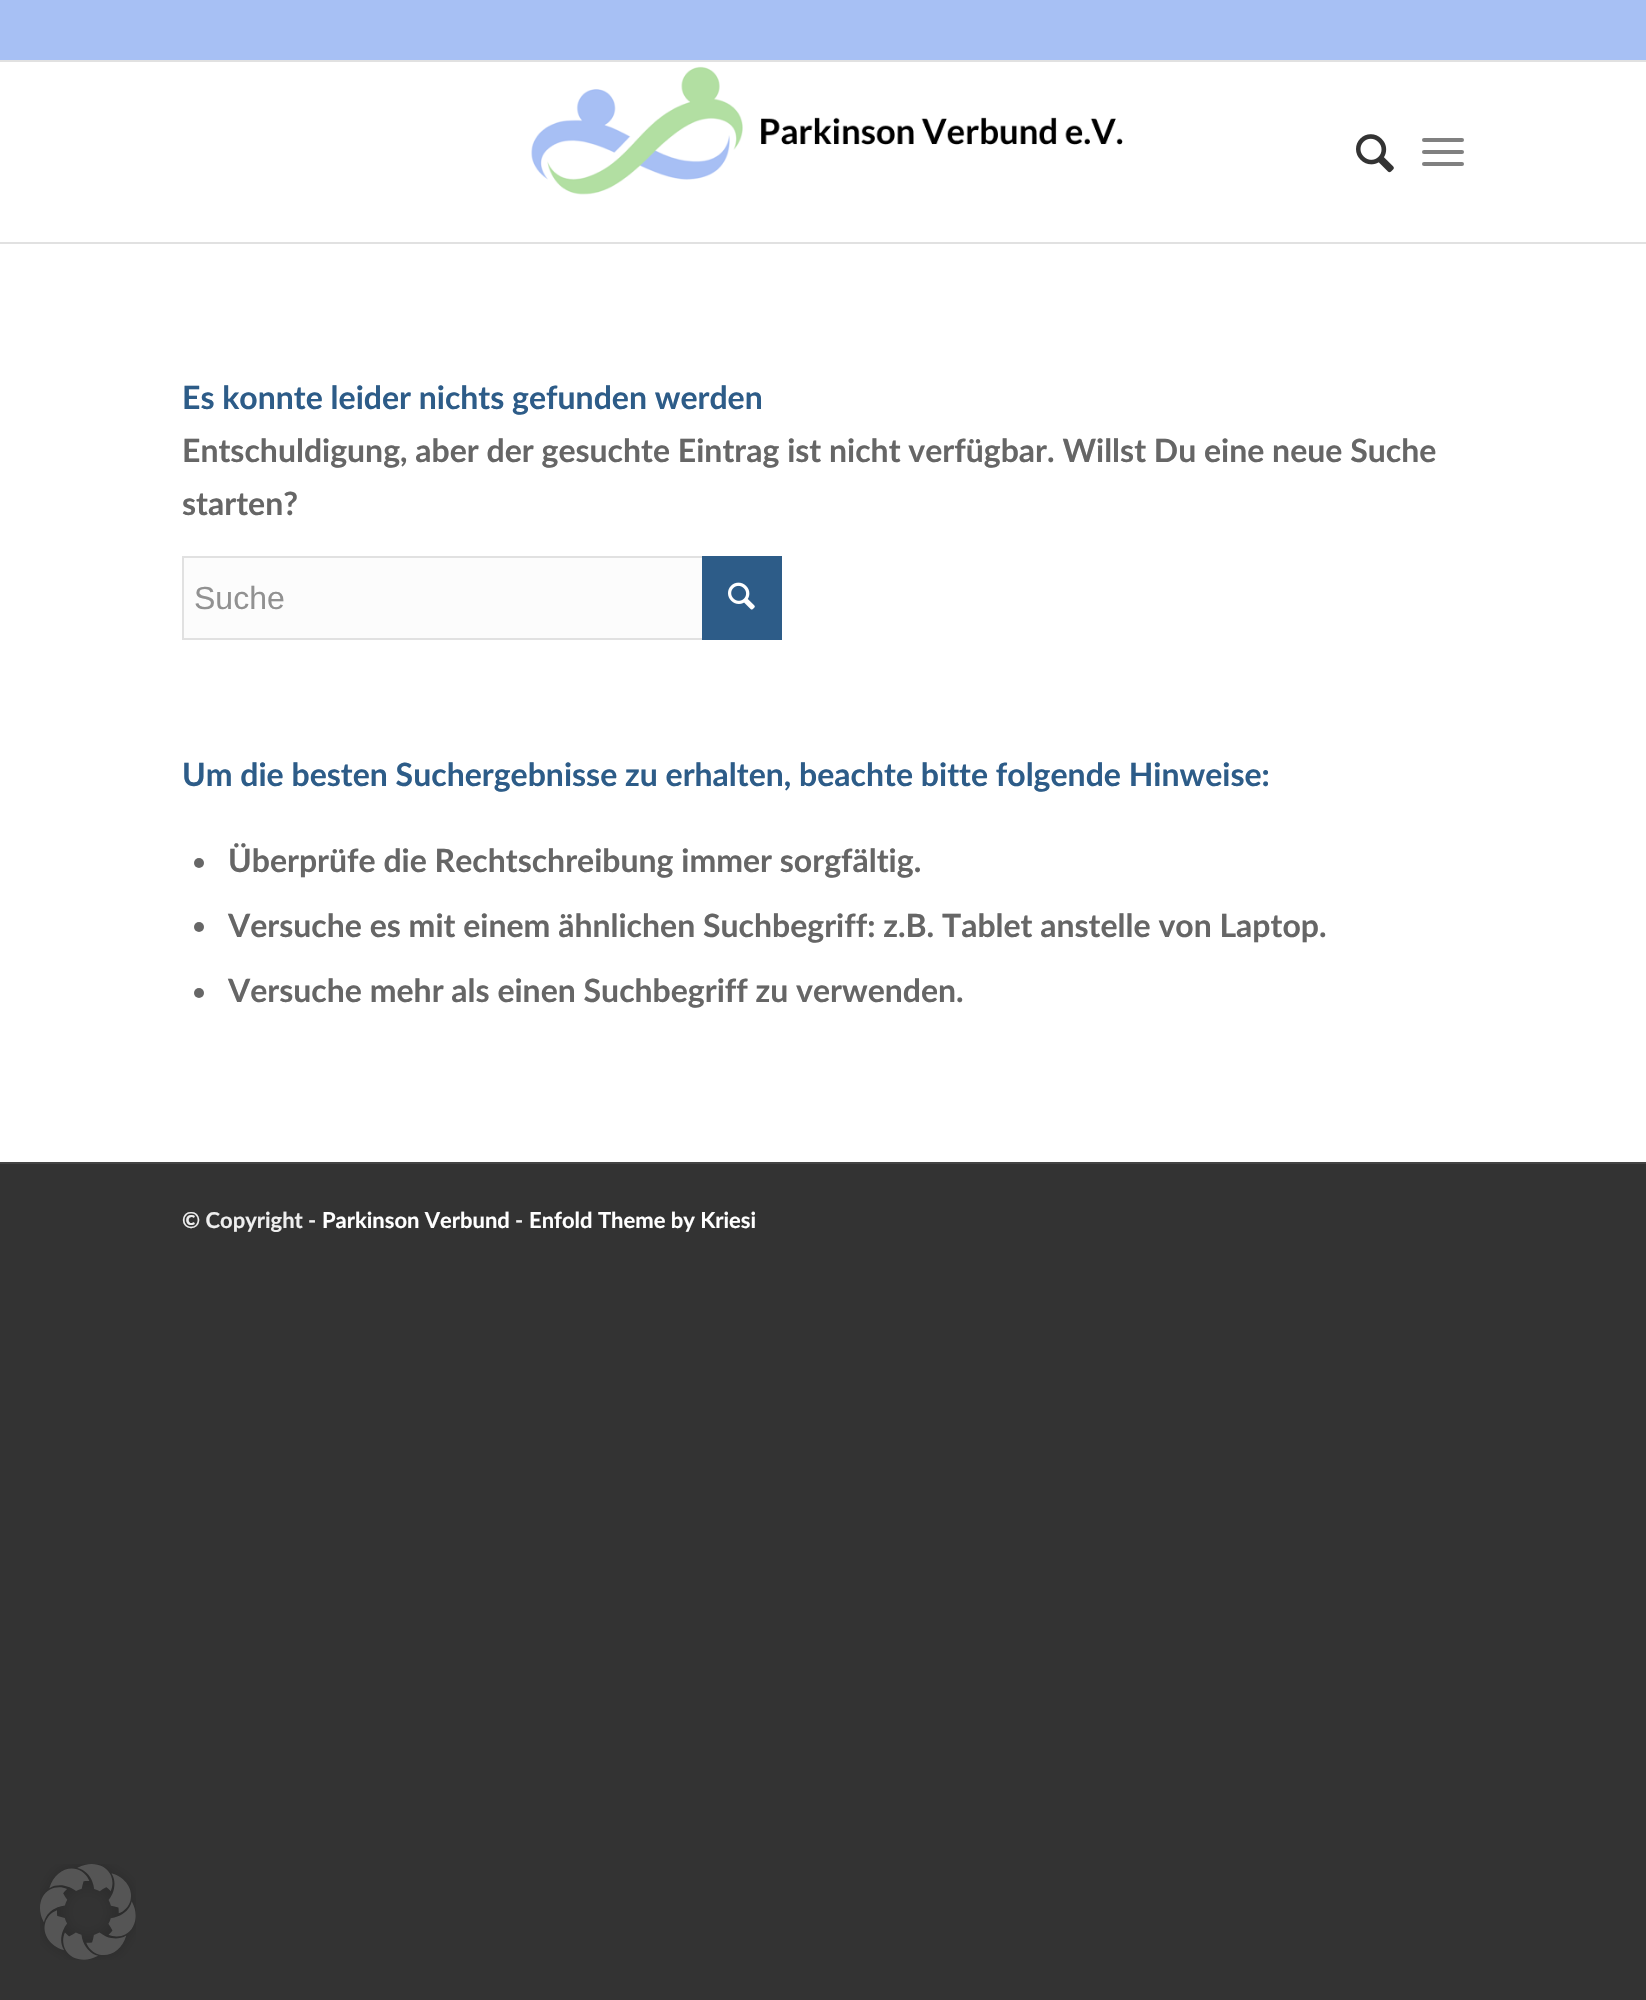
#include "include/core/SkBlurTypes.h"
#include "include/core/SkCanvas.h"
#include "include/core/SkData.h"
#include "include/core/SkFont.h"
#include "include/core/SkFontMgr.h"
#include "include/core/SkImage.h"
#include "include/core/SkMaskFilter.h"
#include "include/core/SkPaint.h"
#include "include/core/SkPathBuilder.h"
#include "include/core/SkTextBlob.h"
#include "include/effects/SkDashPathEffect.h"
#include "include/effects/SkGradientShader.h"
#include "include/utils/SkParsePath.h"

extern sk_sp<SkFontMgr> fontMgr;

void draw(SkCanvas* canvas) {
  SkPaint p;
  p.setAntiAlias(true);
  canvas->clear(SkColorSetRGB(51, 51, 51));
  p.setColor(SK_ColorWHITE);
  canvas->drawRect(SkRect::MakeLTRB(0, 62, 1646, 1162), p);
  p.setColor(SkColorSetRGB(167, 192, 244));
  canvas->drawRect(SkRect::MakeLTRB(0, 0, 1646, 60), p);
  p.setColor(SkColorSetRGB(225, 225, 225));
  canvas->drawRect(SkRect::MakeLTRB(0, 60, 1646, 62), p);
  canvas->drawRect(SkRect::MakeLTRB(0, 242, 1646, 244), p);
  canvas->drawImageRect(SkImages::DeferredFromEncodedData(SkData::MakeFromFileName("images/1.png")), SkRect::MakeLTRB(531, 66, 1123, 195), SkSamplingOptions());
  canvas->drawImageRect(SkImages::DeferredFromEncodedData(SkData::MakeFromFileName("images/2.png")), SkRect::MakeLTRB(1356, 134, 1394, 173), SkSamplingOptions());
  p.setColor(SkColorSetRGB(128, 128, 128));
  canvas->drawRoundRect(SkRect::MakeLTRB(1422, 150, 1464, 154), 2, 2, p);
  canvas->drawRoundRect(SkRect::MakeLTRB(1422, 138, 1464, 142), 2, 2, p);
  canvas->drawRoundRect(SkRect::MakeLTRB(1422, 162, 1464, 166), 2, 2, p);
  p.setColor(SkColorSetRGB(252, 252, 252));
  canvas->drawRect(SkRect::MakeLTRB(184, 558, 702, 638), p);
  p.setStyle(SkPaint::kStroke_Style);
  p.setStrokeWidth(2);
  p.setColor(SkColorSetRGB(225, 225, 225));
  canvas->drawRect(SkRect::MakeLTRB(183, 557, 781, 639), p);
  p.setStyle(SkPaint::kFill_Style);
  p.setColor(SkColorSetRGB(45, 92, 136));
  canvas->drawRect(SkRect::MakeLTRB(702, 556, 782, 640), p);
  canvas->drawImageRect(SkImages::DeferredFromEncodedData(SkData::MakeFromFileName("images/3.png")), SkRect::MakeLTRB(728, 582, 755, 610), SkSamplingOptions());
  p.setColor(SkColorSetRGB(102, 102, 102));
  canvas->drawCircle(199, 863, 5, p);
  canvas->drawCircle(199, 927, 5, p);
  canvas->drawCircle(199, 993, 5, p);
  p.setColor(SkColorSetRGB(68, 68, 68));
  canvas->drawRect(SkRect::MakeLTRB(0, 1162, 1646, 1164), p);
  canvas->drawImageRect(SkImages::DeferredFromEncodedData(SkData::MakeFromFileName("images/4.png")), SkRect::MakeLTRB(40, 1864, 136, 1960), SkSamplingOptions());
  SkFont font1(fontMgr->matchFamilyStyle("Lato", SkFontStyle::Bold()), 32);
  font1.setSubpixel(true);
  p.setColor(SkColorSetRGB(45, 92, 136));
  canvas->drawString("Es konnte leider nichts gefunden werden", 182, 409, font1, p);
  p.setColor(SkColorSetRGB(102, 102, 102));
  canvas->drawString("Entschuldigung, aber der gesuchte Eintrag ist nicht verfügbar. Willst Du eine neue Suche", 182, 462, font1, p);
  canvas->drawString("starten?", 182, 515, font1, p);
  SkFont font2(fontMgr->matchFamilyStyle("Liberation Sans", SkFontStyle::Normal()), 32);
  font2.setSubpixel(true);
  p.setColor(SkColorSetRGB(145, 145, 145));
  canvas->drawString("Suche", 194, 609, font2, p);
  p.setColor(SkColorSetRGB(45, 92, 136));
  canvas->drawString("Um die besten Suchergebnisse zu erhalten, beachte bitte folgende Hinweise:", 182, 786, font1, p);
  p.setColor(SkColorSetRGB(102, 102, 102));
  canvas->drawString("Überprüfe die Rechtschreibung immer sorgfältig.", 228, 872, font1, p);
  canvas->drawString("Versuche es mit einem ähnlichen Suchbegriff: z.B. Tablet anstelle von Laptop.", 228, 937, font1, p);
  canvas->drawString("Versuche mehr als einen Suchbegriff zu verwenden.", 228, 1002, font1, p);
  SkFont font3(fontMgr->matchFamilyStyle("Lato", SkFontStyle::Bold()), 22);
  font3.setSubpixel(true);
  p.setColor(SkColorSetRGB(238, 238, 238));
  canvas->drawString("© Copyright -", 182, 1228, font3, p);
  p.setColor(SK_ColorWHITE);
  canvas->drawString("Parkinson Verbund", 322, 1228, font3, p);
  p.setColor(SkColorSetRGB(238, 238, 238));
  canvas->drawString("-", 515, 1228, font3, p);
  p.setColor(SK_ColorWHITE);
  canvas->drawString("Enfold Theme by Kriesi", 529, 1228, font3, p);
}
